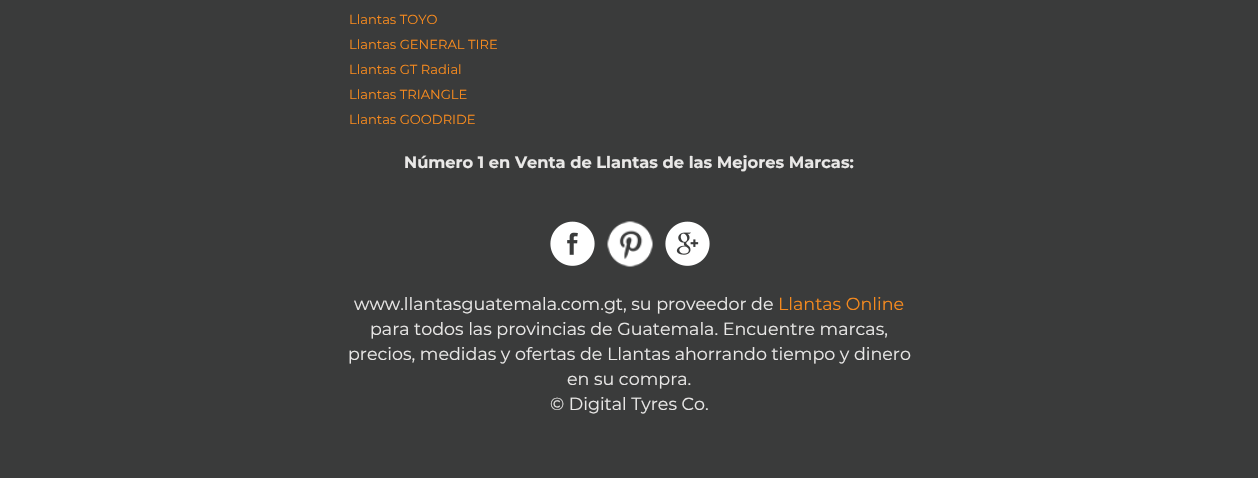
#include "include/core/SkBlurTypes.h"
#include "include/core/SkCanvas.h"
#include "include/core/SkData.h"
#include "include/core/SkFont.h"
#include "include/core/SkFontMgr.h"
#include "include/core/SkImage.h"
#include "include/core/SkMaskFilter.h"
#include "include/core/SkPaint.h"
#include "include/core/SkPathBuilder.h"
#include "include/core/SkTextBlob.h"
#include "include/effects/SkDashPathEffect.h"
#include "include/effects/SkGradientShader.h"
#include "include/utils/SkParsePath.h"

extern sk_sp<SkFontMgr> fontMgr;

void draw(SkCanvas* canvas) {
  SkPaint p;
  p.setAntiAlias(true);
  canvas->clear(SkColorSetRGB(58, 59, 59));
  canvas->drawImageRect(SkImages::DeferredFromEncodedData(SkData::MakeFromFileName("images/1.png")), SkRect::MakeLTRB(550, 221, 595, 266), SkSamplingOptions());
  canvas->drawImageRect(SkImages::DeferredFromEncodedData(SkData::MakeFromFileName("images/2.png")), SkRect::MakeLTRB(607, 221, 653, 267), SkSamplingOptions());
  canvas->drawImageRect(SkImages::DeferredFromEncodedData(SkData::MakeFromFileName("images/3.png")), SkRect::MakeLTRB(665, 221, 710, 266), SkSamplingOptions());
  SkFont font1(fontMgr->matchFamilyStyle("Montserrat", SkFontStyle::Normal()), 13.1f);
  font1.setSubpixel(true);
  p.setColor(SkColorSetRGB(246, 138, 30));
  canvas->drawString("Llantas TOYO", 349, 24, font1, p);
  canvas->drawString("Llantas GENERAL TIRE", 349, 49, font1, p);
  canvas->drawString("Llantas GT Radial", 349, 74, font1, p);
  canvas->drawString("Llantas TRIANGLE", 349, 99, font1, p);
  canvas->drawString("Llantas GOODRIDE", 349, 124, font1, p);
  SkFont font2(fontMgr->matchFamilyStyle("Montserrat", SkFontStyle::Bold()), 16.25f);
  font2.setSubpixel(true);
  p.setColor(SkColorSetRGB(233, 232, 231));
  canvas->drawString("Número 1 en Venta de Llantas de las Mejores Marcas:", 404, 168, font2, p);
  SkFont font3(fontMgr->matchFamilyStyle("Montserrat", SkFontStyle::Normal()), 17.5f);
  font3.setSubpixel(true);
  canvas->drawString("www.llantasguatemala.com.gt, su proveedor de", 354, 310, font3, p);
  p.setColor(SkColorSetRGB(246, 138, 30));
  canvas->drawString("Llantas Online", 778, 310, font3, p);
  p.setColor(SkColorSetRGB(233, 232, 231));
  canvas->drawString("para todos las provincias de Guatemala. Encuentre marcas,", 370, 335, font3, p);
  canvas->drawString("precios, medidas y ofertas de Llantas ahorrando tiempo y dinero", 348, 360, font3, p);
  canvas->drawString("en su compra.", 567, 385, font3, p);
  canvas->drawString("© Digital Tyres Co.", 550, 410, font3, p);
}
